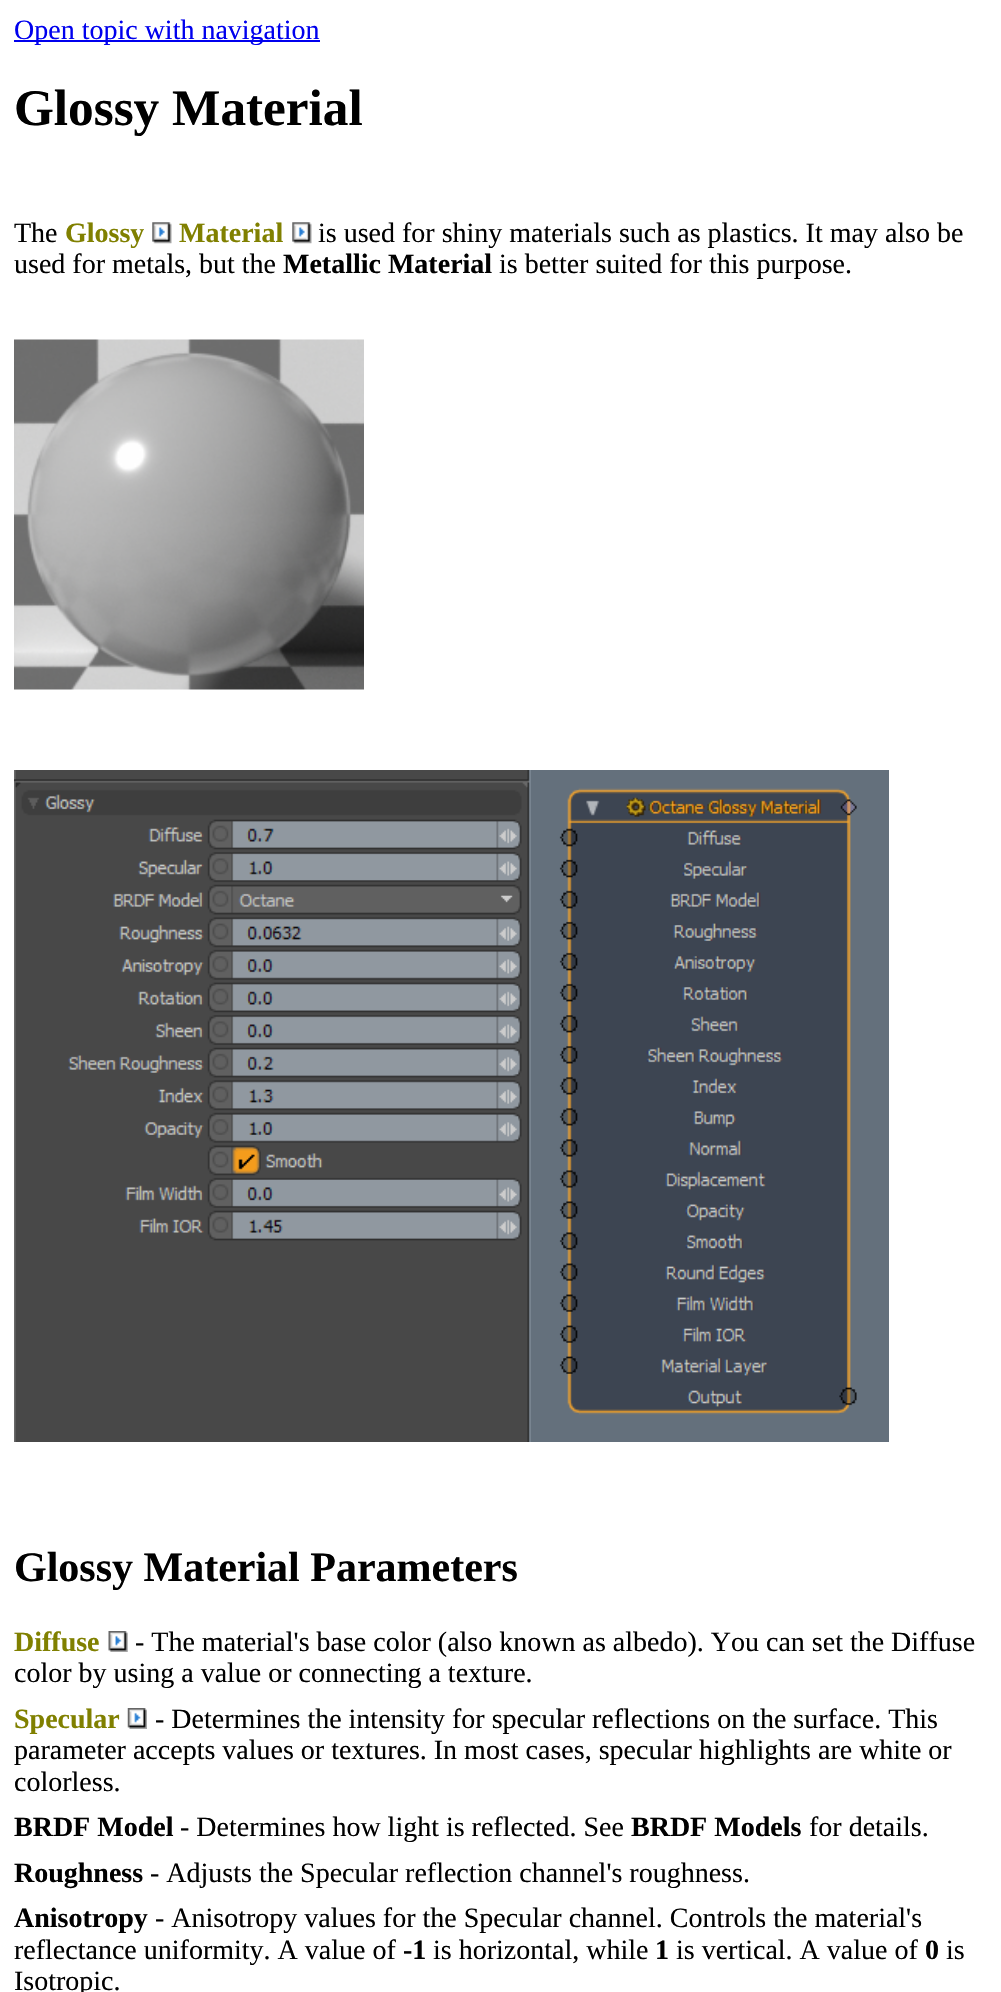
#include "include/core/SkBlurTypes.h"
#include "include/core/SkCanvas.h"
#include "include/core/SkData.h"
#include "include/core/SkFont.h"
#include "include/core/SkFontMgr.h"
#include "include/core/SkImage.h"
#include "include/core/SkMaskFilter.h"
#include "include/core/SkPaint.h"
#include "include/core/SkPathBuilder.h"
#include "include/core/SkTextBlob.h"
#include "include/effects/SkDashPathEffect.h"
#include "include/effects/SkGradientShader.h"
#include "include/utils/SkParsePath.h"

extern sk_sp<SkFontMgr> fontMgr;

void draw(SkCanvas* canvas) {
  SkPaint p;
  p.setAntiAlias(true);
  canvas->clear(SK_ColorWHITE);
  p.setColor(SkColorSetRGB(0, 0, 238));
  canvas->drawRect(SkRect::MakeLTRB(14, 40, 320, 42), p);
  canvas->drawImageRect(SkImages::DeferredFromEncodedData(SkData::MakeFromFileName("images/1.png")), SkRect::MakeLTRB(152, 222, 172, 244), SkSamplingOptions());
  canvas->drawImageRect(SkImages::DeferredFromEncodedData(SkData::MakeFromFileName("images/2.png")), SkRect::MakeLTRB(292, 222, 312, 244), SkSamplingOptions());
  canvas->drawImageRect(SkImages::DeferredFromEncodedData(SkData::MakeFromFileName("images/3.png")), SkRect::MakeLTRB(14, 339, 364, 690), SkSamplingOptions());
  canvas->drawImageRect(SkImages::DeferredFromEncodedData(SkData::MakeFromFileName("images/4.png")), SkRect::MakeLTRB(14, 770, 889, 1442), SkSamplingOptions());
  canvas->drawImageRect(SkImages::DeferredFromEncodedData(SkData::MakeFromFileName("images/5.png")), SkRect::MakeLTRB(108, 1631, 128, 1652), SkSamplingOptions());
  canvas->drawImageRect(SkImages::DeferredFromEncodedData(SkData::MakeFromFileName("images/6.png")), SkRect::MakeLTRB(127, 1708, 147, 1729), SkSamplingOptions());
  SkFont font1(fontMgr->matchFamilyStyle("Liberation Serif", SkFontStyle::Normal()), 28);
  font1.setSubpixel(true);
  canvas->drawString("Open topic with navigation", 14, 39, font1, p);
  SkFont font2(fontMgr->matchFamilyStyle("Liberation Serif", SkFontStyle::Bold()), 51.25f);
  font2.setSubpixel(true);
  p.setColor(SK_ColorBLACK);
  canvas->drawString("Glossy Material", 14, 125, font2, p);
  canvas->drawString("The", 14, 242, font1, p);
  SkFont font3(fontMgr->matchFamilyStyle("Liberation Serif", SkFontStyle::Bold()), 28);
  font3.setSubpixel(true);
  p.setColor(SkColorSetRGB(128, 128, 0));
  canvas->drawString("Glossy", 65, 242, font3, p);
  canvas->drawString("Material", 179, 242, font3, p);
  p.setColor(SK_ColorBLACK);
  canvas->drawString("is used for shiny materials such as plastics. It may also be", 318, 242, font1, p);
  canvas->drawString("used for metals, but the", 14, 273, font1, p);
  canvas->drawString("Metallic Material", 283, 273, font3, p);
  canvas->drawString("is better suited for this purpose.", 499, 273, font1, p);
  SkFont font4(fontMgr->matchFamilyStyle("Liberation Serif", SkFontStyle::Bold()), 42);
  font4.setSubpixel(true);
  canvas->drawString("Glossy Material Parameters", 14, 1581, font4, p);
  p.setColor(SkColorSetRGB(128, 128, 0));
  canvas->drawString("Diffuse", 14, 1651, font3, p);
  p.setColor(SK_ColorBLACK);
  canvas->drawString("- The material's base color (also known as albedo). You can set the Diffuse", 135, 1651, font1, p);
  canvas->drawString("color by using a value or connecting a texture.", 14, 1682, font1, p);
  p.setColor(SkColorSetRGB(128, 128, 0));
  canvas->drawString("Specular", 14, 1728, font3, p);
  p.setColor(SK_ColorBLACK);
  canvas->drawString("- Determines the intensity for specular reflections on the surface. This", 155, 1728, font1, p);
  canvas->drawString("parameter accepts values or textures. In most cases, specular highlights are white or", 14, 1759, font1, p);
  canvas->drawString("colorless.", 14, 1791, font1, p);
  canvas->drawString("BRDF Model", 14, 1836, font3, p);
  canvas->drawString("- Determines how light is reflected. See", 180, 1836, font1, p);
  canvas->drawString("BRDF Models", 631, 1836, font3, p);
  canvas->drawString("for details.", 809, 1836, font1, p);
  canvas->drawString("Roughness", 14, 1882, font3, p);
  canvas->drawString("- Adjusts the Specular reflection channel's roughness.", 150, 1882, font1, p);
  canvas->drawString("Anisotropy", 14, 1927, font3, p);
  canvas->drawString("- Anisotropy values for the Specular channel. Controls the material's", 155, 1927, font1, p);
  canvas->drawString("reflectance uniformity. A value of", 14, 1959, font1, p);
  canvas->drawString("-1", 403, 1959, font3, p);
  canvas->drawString("is horizontal, while", 433, 1959, font1, p);
  canvas->drawString("1", 655, 1959, font3, p);
  canvas->drawString("is vertical. A value of", 676, 1959, font1, p);
  canvas->drawString("0", 925, 1959, font3, p);
  canvas->drawString("is", 946, 1959, font1, p);
  canvas->drawString("Isotropic.", 14, 1990, font1, p);
}
